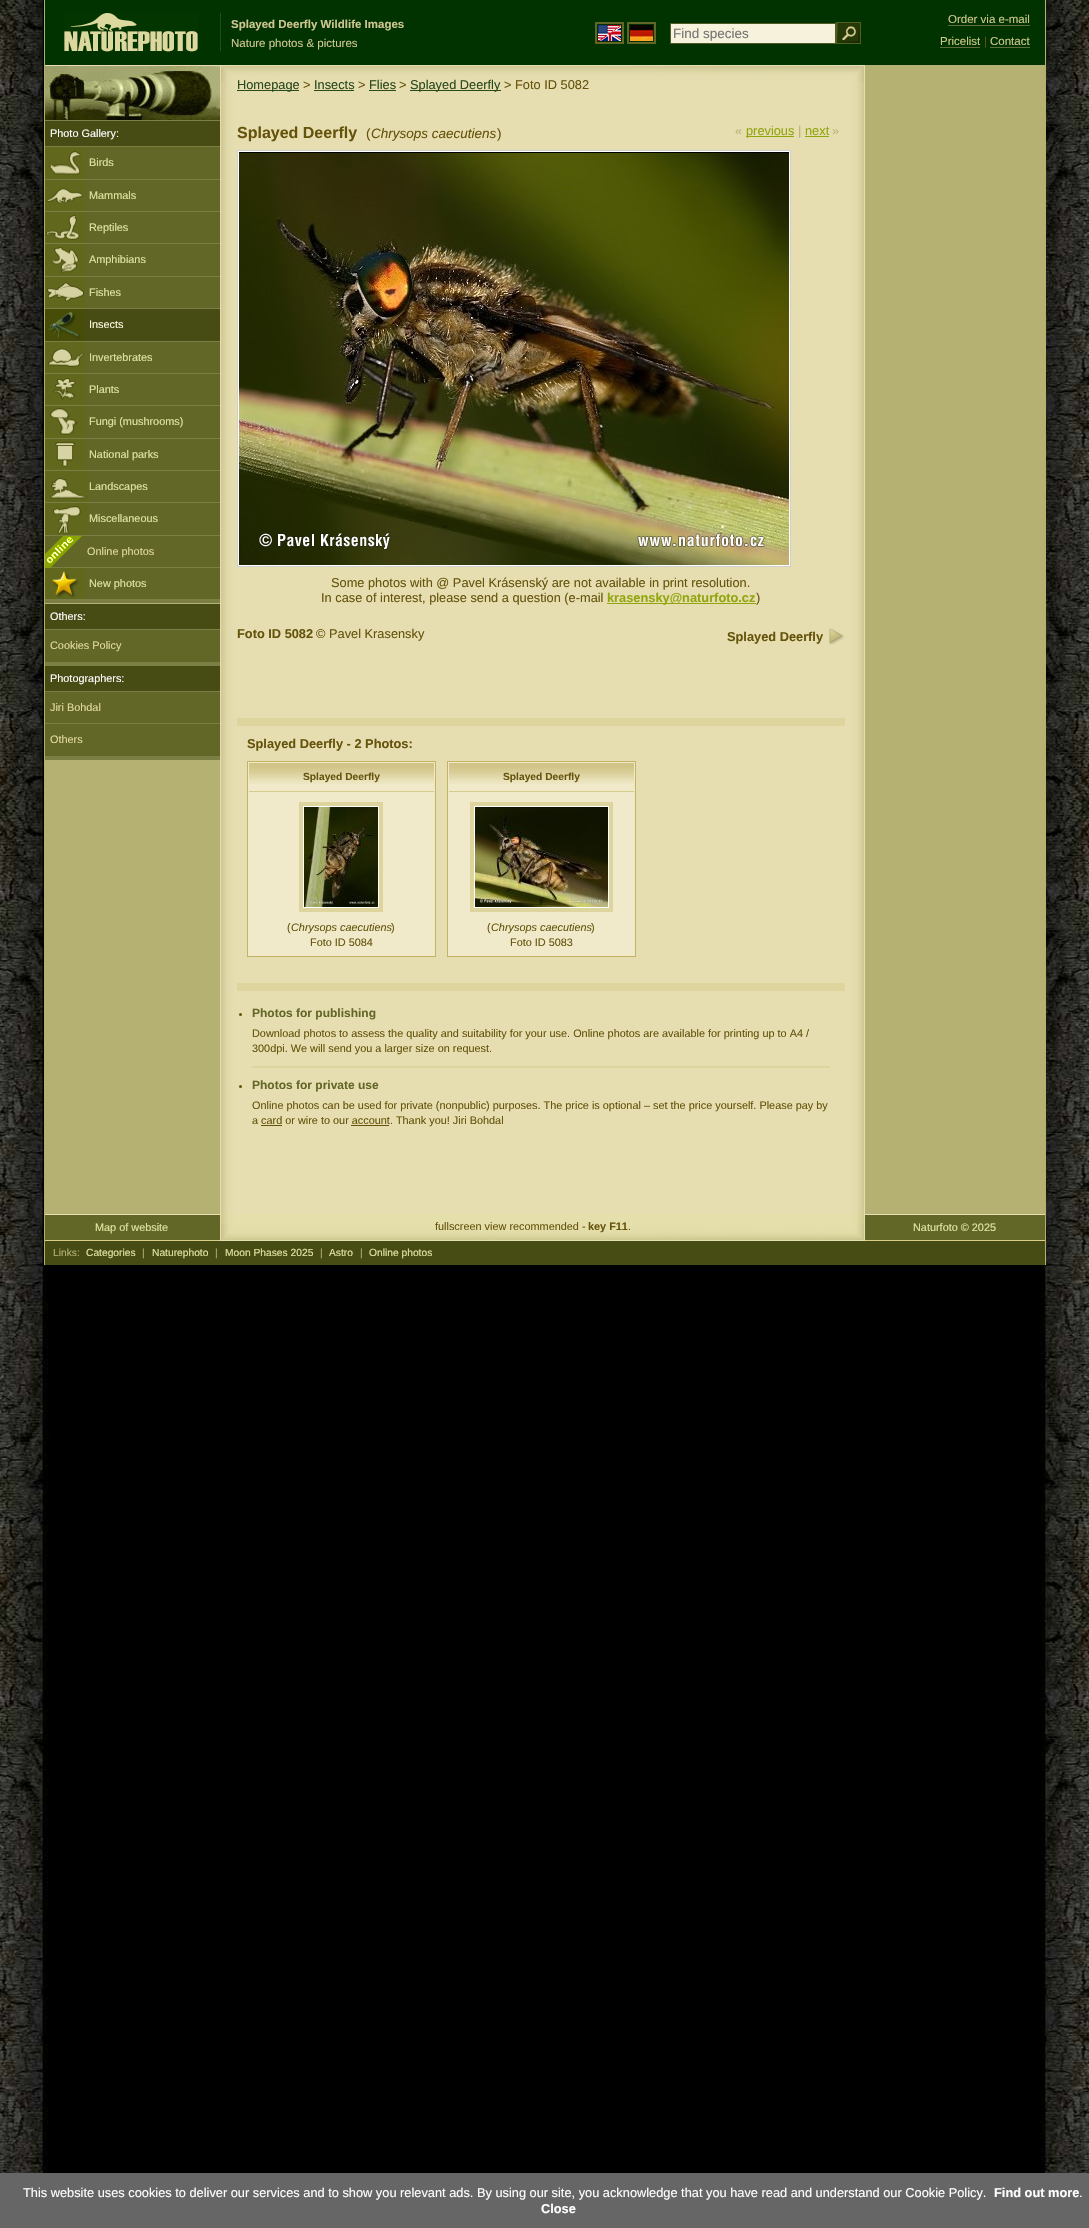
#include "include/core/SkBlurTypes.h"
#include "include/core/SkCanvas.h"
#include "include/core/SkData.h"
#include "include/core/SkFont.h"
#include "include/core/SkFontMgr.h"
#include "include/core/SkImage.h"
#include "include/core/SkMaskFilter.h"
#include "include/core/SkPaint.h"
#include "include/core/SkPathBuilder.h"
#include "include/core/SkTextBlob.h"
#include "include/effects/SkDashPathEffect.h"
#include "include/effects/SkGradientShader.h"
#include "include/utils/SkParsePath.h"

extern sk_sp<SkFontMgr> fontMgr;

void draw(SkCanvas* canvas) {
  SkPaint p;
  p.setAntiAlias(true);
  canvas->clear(SK_ColorWHITE);
  canvas->drawImageRect(SkImages::DeferredFromEncodedData(SkData::MakeFromFileName("images/1.png")), SkRect::MakeLTRB(0, 0, 1089, 2173), SkSamplingOptions());
  canvas->drawImageRect(SkImages::DeferredFromEncodedData(SkData::MakeFromFileName("images/2.png")), SkRect::MakeLTRB(45, 603, 220, 1214), SkSamplingOptions());
  p.setColor(SkColorSetRGB(181, 176, 108));
  canvas->drawRect(SkRect::MakeLTRB(1045, 0, 1046, 1265), p);
  canvas->drawRect(SkRect::MakeLTRB(44, 0, 45, 1265), p);
  p.setColor(SkColorSetRGB(230, 222, 176));
  canvas->drawRect(SkRect::MakeLTRB(220, 66, 221, 1214), p);
  canvas->drawImageRect(SkImages::DeferredFromEncodedData(SkData::MakeFromFileName("images/3.png")), SkRect::MakeLTRB(221, 65, 1045, 1214), SkSamplingOptions());
  p.setColor(SkColorSetRGB(1, 51, 0));
  canvas->drawRect(SkRect::MakeLTRB(45, 0, 1045, 65), p);
  p.setColor(SkColorSetRGB(95, 108, 59));
  canvas->drawRect(SkRect::MakeLTRB(948, 25, 1030, 26), p);
  canvas->drawRect(SkRect::MakeLTRB(940, 47, 980, 48), p);
  canvas->drawRect(SkRect::MakeLTRB(990, 47, 1030, 48), p);
  p.setColor(SkColorSetRGB(71, 76, 20));
  canvas->drawRect(SkRect::MakeLTRB(45, 604, 220, 629), p);
  p.setColor(SkColorSetRGB(123, 127, 68));
  canvas->drawRect(SkRect::MakeLTRB(45, 629, 220, 630), p);
  canvas->drawRect(SkRect::MakeLTRB(45, 662, 220, 666), p);
  p.setColor(SkColorSetRGB(98, 103, 39));
  canvas->drawRect(SkRect::MakeLTRB(45, 630, 220, 662), p);
  p.setColor(SkColorSetRGB(71, 76, 20));
  canvas->drawRect(SkRect::MakeLTRB(45, 666, 220, 691), p);
  p.setColor(SkColorSetRGB(123, 127, 68));
  canvas->drawRect(SkRect::MakeLTRB(45, 691, 220, 692), p);
  canvas->drawRect(SkRect::MakeLTRB(45, 756, 220, 760), p);
  p.setColor(SkColorSetRGB(98, 103, 39));
  canvas->drawRect(SkRect::MakeLTRB(45, 692, 220, 723), p);
  p.setColor(SkColorSetRGB(123, 127, 68));
  canvas->drawRect(SkRect::MakeLTRB(45, 723, 220, 724), p);
  p.setColor(SkColorSetRGB(98, 103, 39));
  canvas->drawRect(SkRect::MakeLTRB(45, 724, 220, 756), p);
  canvas->drawImageRect(SkImages::DeferredFromEncodedData(SkData::MakeFromFileName("images/4.png")), SkRect::MakeLTRB(221, 66, 864, 82), SkSamplingOptions());
  p.setColor(SkColorSetRGB(227, 225, 177));
  canvas->drawRect(SkRect::MakeLTRB(220, 65, 865, 66), p);
  p.setColor(SkColorSetRGB(42, 73, 29));
  canvas->drawRect(SkRect::MakeLTRB(237, 90, 299, 91), p);
  canvas->drawRect(SkRect::MakeLTRB(314, 90, 354, 91), p);
  canvas->drawRect(SkRect::MakeLTRB(369, 90, 396, 91), p);
  canvas->drawRect(SkRect::MakeLTRB(410, 90, 501, 91), p);
  p.setColor(SkColorSetRGB(146, 166, 14));
  canvas->drawRect(SkRect::MakeLTRB(746, 136, 794, 137), p);
  canvas->drawRect(SkRect::MakeLTRB(805, 136, 829, 137), p);
  p.setColor(SK_ColorWHITE);
  canvas->drawRect(SkRect::MakeLTRB(237.5f, 150.5f, 790.5f, 566.5f), p);
  p.setStyle(SkPaint::kStroke_Style);
  p.setStrokeWidth(1);
  p.setColor(SkColorSetRGB(208, 208, 208));
  canvas->drawRect(SkRect::MakeLTRB(237.5f, 150.5f, 790.5f, 566.5f), p);
  canvas->drawImageRect(SkImages::DeferredFromEncodedData(SkData::MakeFromFileName("images/5.png")), SkRect::MakeLTRB(239, 152, 789, 565), SkSamplingOptions());
  p.setStyle(SkPaint::kFill_Style);
  p.setColor(SkColorSetRGB(146, 166, 14));
  canvas->drawRect(SkRect::MakeLTRB(607, 603, 756, 604), p);
  canvas->drawImageRect(SkImages::DeferredFromEncodedData(SkData::MakeFromFileName("images/6.png")), SkRect::MakeLTRB(829, 628, 844, 645), SkSamplingOptions());
  p.setColor(SkColorSetRGB(222, 212, 158));
  canvas->drawRect(SkRect::MakeLTRB(237, 718, 845, 726), p);
  p.setColor(SkColorSetRGB(240, 234, 202));
  canvas->drawRect(SkRect::MakeLTRB(247.5f, 761.5f, 435.5f, 956.5f), p);
  p.setStyle(SkPaint::kStroke_Style);
  p.setColor(SkColorSetRGB(194, 180, 99));
  canvas->drawRect(SkRect::MakeLTRB(247.5f, 761.5f, 435.5f, 956.5f), p);
  canvas->drawImageRect(SkImages::DeferredFromEncodedData(SkData::MakeFromFileName("images/7.png")), SkRect::MakeLTRB(249, 763, 434, 784), SkSamplingOptions());
  p.setStyle(SkPaint::kFill_Style);
  p.setColor(SkColorSetRGB(214, 203, 143));
  canvas->drawRect(SkRect::MakeLTRB(249, 791, 434, 792), p);
  p.setColor(SK_ColorWHITE);
  canvas->drawRect(SkRect::MakeLTRB(301, 804, 381, 910), p);
  p.setStyle(SkPaint::kStroke_Style);
  p.setStrokeWidth(4);
  p.setColor(SkColorSetRGB(222, 212, 158));
  canvas->drawRect(SkRect::MakeLTRB(301, 804, 381, 910), p);
  canvas->drawImageRect(SkImages::DeferredFromEncodedData(SkData::MakeFromFileName("images/8.png")), SkRect::MakeLTRB(304, 807, 378, 907), SkSamplingOptions());
  p.setStyle(SkPaint::kFill_Style);
  p.setColor(SkColorSetRGB(240, 234, 202));
  canvas->drawRect(SkRect::MakeLTRB(447.5f, 761.5f, 635.5f, 956.5f), p);
  p.setStyle(SkPaint::kStroke_Style);
  p.setStrokeWidth(1);
  p.setColor(SkColorSetRGB(194, 180, 99));
  canvas->drawRect(SkRect::MakeLTRB(447.5f, 761.5f, 635.5f, 956.5f), p);
  canvas->drawImageRect(SkImages::DeferredFromEncodedData(SkData::MakeFromFileName("images/7.png")), SkRect::MakeLTRB(449, 763, 634, 784), SkSamplingOptions());
  p.setStyle(SkPaint::kFill_Style);
  p.setColor(SkColorSetRGB(214, 203, 143));
  canvas->drawRect(SkRect::MakeLTRB(449, 791, 634, 792), p);
  p.setColor(SK_ColorWHITE);
  canvas->drawRect(SkRect::MakeLTRB(472, 804, 611, 910), p);
  p.setStyle(SkPaint::kStroke_Style);
  p.setStrokeWidth(4);
  p.setColor(SkColorSetRGB(222, 212, 158));
  canvas->drawRect(SkRect::MakeLTRB(472, 804, 611, 910), p);
  canvas->drawImageRect(SkImages::DeferredFromEncodedData(SkData::MakeFromFileName("images/9.png")), SkRect::MakeLTRB(475, 807, 608, 907), SkSamplingOptions());
  p.setStyle(SkPaint::kFill_Style);
  canvas->drawRect(SkRect::MakeLTRB(237, 983, 845, 991), p);
  p.setColor(SkColorSetRGB(101, 83, 11));
  canvas->drawCircle(240.5f, 1014.5f, 1.5f, p);
  p.setColor(SkColorSetRGB(222, 212, 158));
  canvas->drawRect(SkRect::MakeLTRB(252, 1066, 830, 1068), p);
  p.setColor(SkColorSetRGB(101, 83, 11));
  canvas->drawCircle(240.5f, 1086.5f, 1.5f, p);
  canvas->drawRect(SkRect::MakeLTRB(261, 1125, 282, 1126), p);
  canvas->drawRect(SkRect::MakeLTRB(351, 1125, 389, 1126), p);
  canvas->drawImageRect(SkImages::DeferredFromEncodedData(SkData::MakeFromFileName("images/10.png")), SkRect::MakeLTRB(45, 66, 220, 121), SkSamplingOptions());
  p.setColor(SkColorSetRGB(71, 76, 20));
  canvas->drawRect(SkRect::MakeLTRB(45, 121, 220, 146), p);
  p.setColor(SkColorSetRGB(123, 127, 68));
  canvas->drawRect(SkRect::MakeLTRB(45, 146, 220, 147), p);
  canvas->drawRect(SkRect::MakeLTRB(45, 599, 220, 603), p);
  canvas->drawRect(SkRect::MakeLTRB(45, 179, 220, 180), p);
  p.setColor(SkColorSetRGB(98, 103, 39));
  canvas->drawRect(SkRect::MakeLTRB(45, 147, 220, 179), p);
  canvas->drawImageRect(SkImages::DeferredFromEncodedData(SkData::MakeFromFileName("images/11.png")), SkRect::MakeLTRB(45, 147, 85, 179), SkSamplingOptions());
  p.setColor(SkColorSetRGB(123, 127, 68));
  canvas->drawRect(SkRect::MakeLTRB(45, 211, 220, 212), p);
  p.setColor(SkColorSetRGB(98, 103, 39));
  canvas->drawRect(SkRect::MakeLTRB(45, 180, 220, 211), p);
  canvas->drawImageRect(SkImages::DeferredFromEncodedData(SkData::MakeFromFileName("images/12.png")), SkRect::MakeLTRB(45, 180, 85, 211), SkSamplingOptions());
  p.setColor(SkColorSetRGB(123, 127, 68));
  canvas->drawRect(SkRect::MakeLTRB(45, 243, 220, 244), p);
  p.setColor(SkColorSetRGB(98, 103, 39));
  canvas->drawRect(SkRect::MakeLTRB(45, 212, 220, 243), p);
  canvas->drawImageRect(SkImages::DeferredFromEncodedData(SkData::MakeFromFileName("images/13.png")), SkRect::MakeLTRB(45, 212, 85, 243), SkSamplingOptions());
  p.setColor(SkColorSetRGB(123, 127, 68));
  canvas->drawRect(SkRect::MakeLTRB(45, 276, 220, 277), p);
  p.setColor(SkColorSetRGB(98, 103, 39));
  canvas->drawRect(SkRect::MakeLTRB(45, 244, 220, 276), p);
  canvas->drawImageRect(SkImages::DeferredFromEncodedData(SkData::MakeFromFileName("images/14.png")), SkRect::MakeLTRB(45, 244, 85, 276), SkSamplingOptions());
  p.setColor(SkColorSetRGB(123, 127, 68));
  canvas->drawRect(SkRect::MakeLTRB(45, 308, 220, 309), p);
  p.setColor(SkColorSetRGB(98, 103, 39));
  canvas->drawRect(SkRect::MakeLTRB(45, 277, 220, 308), p);
  canvas->drawImageRect(SkImages::DeferredFromEncodedData(SkData::MakeFromFileName("images/15.png")), SkRect::MakeLTRB(45, 277, 85, 308), SkSamplingOptions());
  p.setColor(SkColorSetRGB(123, 127, 68));
  canvas->drawRect(SkRect::MakeLTRB(45, 341, 220, 342), p);
  p.setColor(SkColorSetRGB(71, 76, 20));
  canvas->drawRect(SkRect::MakeLTRB(45, 309, 220, 341), p);
  canvas->drawImageRect(SkImages::DeferredFromEncodedData(SkData::MakeFromFileName("images/16.png")), SkRect::MakeLTRB(45, 309, 85, 341), SkSamplingOptions());
  p.setColor(SkColorSetRGB(123, 127, 68));
  canvas->drawRect(SkRect::MakeLTRB(45, 373, 220, 374), p);
  p.setColor(SkColorSetRGB(98, 103, 39));
  canvas->drawRect(SkRect::MakeLTRB(45, 342, 220, 373), p);
  canvas->drawImageRect(SkImages::DeferredFromEncodedData(SkData::MakeFromFileName("images/17.png")), SkRect::MakeLTRB(45, 342, 85, 373), SkSamplingOptions());
  p.setColor(SkColorSetRGB(123, 127, 68));
  canvas->drawRect(SkRect::MakeLTRB(45, 405, 220, 406), p);
  p.setColor(SkColorSetRGB(98, 103, 39));
  canvas->drawRect(SkRect::MakeLTRB(45, 374, 220, 405), p);
  canvas->drawImageRect(SkImages::DeferredFromEncodedData(SkData::MakeFromFileName("images/18.png")), SkRect::MakeLTRB(45, 374, 85, 405), SkSamplingOptions());
  p.setColor(SkColorSetRGB(123, 127, 68));
  canvas->drawRect(SkRect::MakeLTRB(45, 438, 220, 439), p);
  p.setColor(SkColorSetRGB(98, 103, 39));
  canvas->drawRect(SkRect::MakeLTRB(45, 406, 220, 438), p);
  canvas->drawImageRect(SkImages::DeferredFromEncodedData(SkData::MakeFromFileName("images/19.png")), SkRect::MakeLTRB(45, 406, 85, 438), SkSamplingOptions());
  p.setColor(SkColorSetRGB(123, 127, 68));
  canvas->drawRect(SkRect::MakeLTRB(45, 470, 220, 471), p);
  p.setColor(SkColorSetRGB(98, 103, 39));
  canvas->drawRect(SkRect::MakeLTRB(45, 439, 220, 470), p);
  canvas->drawImageRect(SkImages::DeferredFromEncodedData(SkData::MakeFromFileName("images/20.png")), SkRect::MakeLTRB(45, 439, 85, 470), SkSamplingOptions());
  p.setColor(SkColorSetRGB(123, 127, 68));
  canvas->drawRect(SkRect::MakeLTRB(45, 502, 220, 503), p);
  p.setColor(SkColorSetRGB(98, 103, 39));
  canvas->drawRect(SkRect::MakeLTRB(45, 471, 220, 502), p);
  canvas->drawImageRect(SkImages::DeferredFromEncodedData(SkData::MakeFromFileName("images/21.png")), SkRect::MakeLTRB(45, 471, 89, 502), SkSamplingOptions());
  p.setColor(SkColorSetRGB(123, 127, 68));
  canvas->drawRect(SkRect::MakeLTRB(45, 535, 220, 536), p);
  p.setColor(SkColorSetRGB(98, 103, 39));
  canvas->drawRect(SkRect::MakeLTRB(45, 503, 220, 535), p);
  canvas->drawImageRect(SkImages::DeferredFromEncodedData(SkData::MakeFromFileName("images/22.png")), SkRect::MakeLTRB(45, 503, 89, 535), SkSamplingOptions());
  canvas->drawRect(SkRect::MakeLTRB(45, 536, 220, 567), p);
  p.setColor(SkColorSetRGB(123, 127, 68));
  canvas->drawRect(SkRect::MakeLTRB(45, 567, 220, 568), p);
  canvas->drawImageRect(SkImages::DeferredFromEncodedData(SkData::MakeFromFileName("images/23.png")), SkRect::MakeLTRB(45, 536, 82, 568), SkSamplingOptions());
  p.setColor(SkColorSetRGB(98, 103, 39));
  canvas->drawRect(SkRect::MakeLTRB(45, 568, 220, 599), p);
  canvas->drawImageRect(SkImages::DeferredFromEncodedData(SkData::MakeFromFileName("images/24.png")), SkRect::MakeLTRB(45, 568, 85, 599), SkSamplingOptions());
  p.setColor(SkColorSetRGB(230, 222, 176));
  canvas->drawRect(SkRect::MakeLTRB(45, 65, 220, 66), p);
  canvas->drawImageRect(SkImages::DeferredFromEncodedData(SkData::MakeFromFileName("images/25.png")), SkRect::MakeLTRB(64, 13, 198, 52), SkSamplingOptions());
  p.setColor(SkColorSetRGB(35, 76, 24));
  canvas->drawRect(SkRect::MakeLTRB(220, 13, 221, 51), p);
  p.setStyle(SkPaint::kStroke_Style);
  p.setStrokeWidth(2);
  p.setColor(SkColorSetRGB(98, 103, 39));
  canvas->drawRect(SkRect::MakeLTRB(596, 23, 623, 43), p);
  canvas->drawRect(SkRect::MakeLTRB(628, 23, 655, 43), p);
  canvas->drawImageRect(SkImages::DeferredFromEncodedData(SkData::MakeFromFileName("images/26.png")), SkRect::MakeLTRB(836, 22, 861, 44), SkSamplingOptions());
  canvas->drawImageRect(SkImages::DeferredFromEncodedData(SkData::MakeFromFileName("images/27.png")), SkRect::MakeLTRB(598, 25, 621, 41), SkSamplingOptions());
  canvas->drawImageRect(SkImages::DeferredFromEncodedData(SkData::MakeFromFileName("images/28.png")), SkRect::MakeLTRB(630, 25, 653, 41), SkSamplingOptions());
  p.setStyle(SkPaint::kFill_Style);
  p.setColor(SkColorSetRGB(247, 242, 220));
  canvas->drawRect(SkRect::MakeLTRB(670.5f, 23.5f, 835.5f, 43.5f), p);
  p.setStyle(SkPaint::kStroke_Style);
  p.setStrokeWidth(1);
  p.setColor(SkColorSetRGB(82, 91, 34));
  canvas->drawRect(SkRect::MakeLTRB(670.5f, 23.5f, 835.5f, 43.5f), p);
  p.setStyle(SkPaint::kFill_Style);
  p.setColor(SkColorSetRGB(98, 103, 39));
  canvas->drawRect(SkRect::MakeLTRB(45, 1215, 220, 1240), p);
  p.setColor(SkColorSetRGB(230, 222, 176));
  canvas->drawRect(SkRect::MakeLTRB(45, 1214, 220, 1215), p);
  p.setColor(SkColorSetRGB(218, 206, 134));
  canvas->drawRect(SkRect::MakeLTRB(45, 1240, 220, 1241), p);
  p.setColor(SkColorSetRGB(230, 222, 176));
  canvas->drawRect(SkRect::MakeLTRB(220, 1214, 865, 1240), p);
  canvas->drawImageRect(SkImages::DeferredFromEncodedData(SkData::MakeFromFileName("images/29.png")), SkRect::MakeLTRB(221, 1214, 864, 1240), SkSamplingOptions());
  p.setColor(SkColorSetRGB(227, 225, 177));
  canvas->drawRect(SkRect::MakeLTRB(220, 1240, 865, 1241), p);
  p.setColor(SkColorSetRGB(98, 103, 39));
  canvas->drawRect(SkRect::MakeLTRB(865, 1215, 1045, 1240), p);
  p.setColor(SkColorSetRGB(230, 222, 176));
  canvas->drawRect(SkRect::MakeLTRB(865, 1214, 1045, 1215), p);
  p.setColor(SkColorSetRGB(218, 206, 134));
  canvas->drawRect(SkRect::MakeLTRB(865, 1240, 1045, 1241), p);
  p.setColor(SkColorSetRGB(71, 76, 20));
  canvas->drawRect(SkRect::MakeLTRB(45, 1241, 1045, 1265), p);
  p.setColor(SkColorSetRGB(102, 102, 102));
  canvas->drawRect(SkRect::MakeLTRB(0, 2173, 1089, 2228), p);
  SkFont font1(fontMgr->matchFamilyStyle("Liberation Sans", SkFontStyle::Normal()), 11.5f);
  font1.setSubpixel(true);
  p.setColor(SkColorSetRGB(205, 199, 139));
  canvas->drawString("Order via e-mail", 948, 23, font1, p);
  canvas->drawString("Pricelist", 940, 45, font1, p);
  p.setColor(SkColorSetRGB(101, 83, 11));
  canvas->drawString("|", 984, 45, font1, p);
  p.setColor(SkColorSetRGB(205, 199, 139));
  canvas->drawString("Contact", 990, 45, font1, p);
  SkFont font2(fontMgr->matchFamilyStyle("Liberation Sans", SkFontStyle::Normal()), 10.88f);
  font2.setSubpixel(true);
  p.setColor(SK_ColorWHITE);
  canvas->drawString("Others:", 50, 620, font2, p);
  p.setColor(SkColorSetRGB(226, 217, 160));
  canvas->drawString("Cookies Policy", 50, 649, font2, p);
  p.setColor(SK_ColorWHITE);
  canvas->drawString("Photographers:", 50, 682, font2, p);
  p.setColor(SkColorSetRGB(226, 217, 160));
  canvas->drawString("Jiri Bohdal", 50, 711, font2, p);
  canvas->drawString("Others", 50, 743, font2, p);
  SkFont font3(fontMgr->matchFamilyStyle("Liberation Sans", SkFontStyle::Normal()), 12.8f);
  font3.setSubpixel(true);
  p.setColor(SkColorSetRGB(42, 73, 29));
  canvas->drawString("Homepage", 237, 89, font3, p);
  p.setColor(SkColorSetRGB(101, 83, 11));
  canvas->drawString(">", 303, 89, font3, p);
  p.setColor(SkColorSetRGB(42, 73, 29));
  canvas->drawString("Insects", 314, 89, font3, p);
  p.setColor(SkColorSetRGB(101, 83, 11));
  canvas->drawString(">", 358, 89, font3, p);
  p.setColor(SkColorSetRGB(42, 73, 29));
  canvas->drawString("Flies", 369, 89, font3, p);
  p.setColor(SkColorSetRGB(101, 83, 11));
  canvas->drawString(">", 399, 89, font3, p);
  p.setColor(SkColorSetRGB(42, 73, 29));
  canvas->drawString("Splayed Deerfly", 410, 89, font3, p);
  p.setColor(SkColorSetRGB(101, 83, 11));
  canvas->drawString("> Foto ID 5082", 504, 89, font3, p);
  SkFont font4(fontMgr->matchFamilyStyle("Liberation Sans", SkFontStyle::Bold()), 16);
  font4.setSubpixel(true);
  canvas->drawString("Splayed Deerfly", 237, 138, font4, p);
  SkFont font5(fontMgr->matchFamilyStyle("Liberation Sans", SkFontStyle::Normal()), 13.5f);
  font5.setSubpixel(true);
  canvas->drawString("(", 366, 138, font5, p);
  SkFont font6(fontMgr->matchFamilyStyle("Liberation Sans", SkFontStyle::Italic()), 13.5f);
  font6.setSubpixel(true);
  canvas->drawString("Chrysops caecutiens", 371, 138, font6, p);
  canvas->drawString(")", 497, 138, font5, p);
  p.setColor(SkColorSetRGB(191, 176, 114));
  canvas->drawString("«", 735, 135, font3, p);
  p.setColor(SkColorSetRGB(146, 166, 14));
  canvas->drawString("previous", 746, 135, font3, p);
  p.setColor(SkColorSetRGB(191, 176, 114));
  canvas->drawString("|", 798, 135, font3, p);
  p.setColor(SkColorSetRGB(146, 166, 14));
  canvas->drawString("next", 805, 135, font3, p);
  p.setColor(SkColorSetRGB(191, 176, 114));
  canvas->drawString("»", 832, 135, font3, p);
  p.setColor(SkColorSetRGB(101, 83, 11));
  canvas->drawString("Some photos with @ Pavel Krásenský are not available in print resolution.", 331, 587, font3, p);
  canvas->drawString("In case of interest, please send a question (e-mail", 321, 602, font3, p);
  SkFont font7(fontMgr->matchFamilyStyle("Liberation Sans", SkFontStyle::Bold()), 12.8f);
  font7.setSubpixel(true);
  p.setColor(SkColorSetRGB(146, 166, 14));
  canvas->drawString("krasensky@naturfoto.cz", 607, 602, font7, p);
  p.setColor(SkColorSetRGB(101, 83, 11));
  canvas->drawString(")", 756, 602, font3, p);
  canvas->drawString("Foto ID 5082", 237, 638, font7, p);
  canvas->drawString("© Pavel Krasensky", 316, 638, font3, p);
  canvas->drawString("Splayed Deerfly", 727, 641, font7, p);
  canvas->drawString("Splayed Deerfly - 2 Photos:", 247, 748, font7, p);
  SkFont font8(fontMgr->matchFamilyStyle("Liberation Sans", SkFontStyle::Bold()), 10.25f);
  font8.setSubpixel(true);
  canvas->drawString("Splayed Deerfly", 303, 780, font8, p);
  canvas->drawString("(", 287, 931, font2, p);
  SkFont font9(fontMgr->matchFamilyStyle("Liberation Sans", SkFontStyle::Italic()), 10.88f);
  font9.setSubpixel(true);
  canvas->drawString("Chrysops caecutiens", 291, 931, font9, p);
  canvas->drawString(")", 391, 931, font2, p);
  canvas->drawString("Foto ID 5084", 310, 946, font2, p);
  canvas->drawString("Splayed Deerfly", 503, 780, font8, p);
  canvas->drawString("(", 487, 931, font2, p);
  canvas->drawString("Chrysops caecutiens", 491, 931, font9, p);
  canvas->drawString(")", 591, 931, font2, p);
  canvas->drawString("Foto ID 5083", 510, 946, font2, p);
  SkFont font10(fontMgr->matchFamilyStyle("Liberation Sans", SkFontStyle::Bold()), 12);
  font10.setSubpixel(true);
  p.setColor(SkColorSetRGB(98, 103, 39));
  canvas->drawString("Photos for publishing", 252, 1017, font10, p);
  p.setColor(SkColorSetRGB(101, 83, 11));
  canvas->drawString("Download photos to assess the quality and suitability for your use. Online photos are available for printing up to A4 /", 252, 1037, font2, p);
  canvas->drawString("300dpi. We will send you a larger size on request.", 252, 1052, font2, p);
  p.setColor(SkColorSetRGB(98, 103, 39));
  canvas->drawString("Photos for private use", 252, 1089, font10, p);
  p.setColor(SkColorSetRGB(101, 83, 11));
  canvas->drawString("Online photos can be used for private (nonpublic) purposes. The price is optional – set the price yourself. Please pay by", 252, 1109, font2, p);
  canvas->drawString("a card or wire to our account. Thank you! Jiri Bohdal", 252, 1124, font2, p);
  p.setColor(SK_ColorWHITE);
  canvas->drawString("Photo Gallery:", 50, 137, font2, p);
  p.setColor(SkColorSetRGB(224, 226, 160));
  canvas->drawString("Birds", 89, 166, font2, p);
  canvas->drawString("Mammals", 89, 199, font2, p);
  canvas->drawString("Reptiles", 89, 231, font2, p);
  canvas->drawString("Amphibians", 89, 263, font2, p);
  canvas->drawString("Fishes", 89, 296, font2, p);
  p.setColor(SkColorSetRGB(254, 249, 223));
  canvas->drawString("Insects", 89, 328, font2, p);
  p.setColor(SkColorSetRGB(224, 226, 160));
  canvas->drawString("Invertebrates", 89, 361, font2, p);
  canvas->drawString("Plants", 89, 393, font2, p);
  canvas->drawString("Fungi (mushrooms)", 89, 425, font2, p);
  canvas->drawString("National parks", 89, 458, font2, p);
  canvas->drawString("Landscapes", 89, 490, font2, p);
  canvas->drawString("Miscellaneous", 89, 522, font2, p);
  p.setColor(SkColorSetRGB(226, 217, 160));
  canvas->drawString("Online photos", 87, 555, font2, p);
  p.setColor(SkColorSetRGB(224, 226, 160));
  canvas->drawString("New photos", 89, 587, font2, p);
  SkFont font11(fontMgr->matchFamilyStyle("Liberation Sans", SkFontStyle::Bold()), 11.5f);
  font11.setSubpixel(true);
  p.setColor(SkColorSetRGB(208, 198, 145));
  canvas->drawString("Splayed Deerfly Wildlife Images", 231, 28, font11, p);
  canvas->drawString("Nature photos & pictures", 231, 47, font1, p);
  p.setColor(SkColorSetRGB(117, 117, 117));
  canvas->drawString("Find species", 673, 38, font5, p);
  p.setColor(SkColorSetRGB(224, 226, 160));
  canvas->drawString("Map of website", 95, 1231, font2, p);
  p.setColor(SkColorSetRGB(101, 83, 11));
  canvas->drawString("fullscreen view recommended -", 435, 1230, font2, p);
  SkFont font12(fontMgr->matchFamilyStyle("Liberation Sans", SkFontStyle::Bold()), 10.88f);
  font12.setSubpixel(true);
  canvas->drawString("key F11", 588, 1230, font12, p);
  canvas->drawString(".", 628, 1230, font2, p);
  p.setColor(SkColorSetRGB(224, 226, 160));
  canvas->drawString("Naturfoto © 2025", 913, 1231, font2, p);
  SkFont font13(fontMgr->matchFamilyStyle("Liberation Sans", SkFontStyle::Normal()), 10.25f);
  font13.setSubpixel(true);
  p.setColor(SkColorSetRGB(181, 177, 114));
  canvas->drawString("Links:", 53, 1256, font13, p);
  p.setColor(SkColorSetRGB(224, 226, 160));
  canvas->drawString("Categories", 86, 1256, font13, p);
  p.setColor(SkColorSetRGB(181, 177, 114));
  canvas->drawString("|", 142, 1256, font13, p);
  p.setColor(SkColorSetRGB(224, 226, 160));
  canvas->drawString("Naturephoto", 152, 1256, font13, p);
  p.setColor(SkColorSetRGB(181, 177, 114));
  canvas->drawString("|", 215, 1256, font13, p);
  p.setColor(SkColorSetRGB(224, 226, 160));
  canvas->drawString("Moon Phases 2025", 225, 1256, font13, p);
  p.setColor(SkColorSetRGB(181, 177, 114));
  canvas->drawString("|", 320, 1256, font13, p);
  p.setColor(SkColorSetRGB(224, 226, 160));
  canvas->drawString("Astro", 329, 1256, font13, p);
  p.setColor(SkColorSetRGB(181, 177, 114));
  canvas->drawString("|", 360, 1256, font13, p);
  p.setColor(SkColorSetRGB(224, 226, 160));
  canvas->drawString("Online photos", 369, 1256, font13, p);
  p.setColor(SK_ColorWHITE);
  canvas->drawString("This website uses cookies to deliver our services and to show you relevant ads. By using our site, you acknowledge that you have read and understand our Cookie Policy.", 23, 2197, font3, p);
  canvas->drawString("Find out more", 994, 2197, font7, p);
  canvas->drawString(".", 1079, 2197, font3, p);
  canvas->drawString("Close", 541, 2213, font7, p);
}
